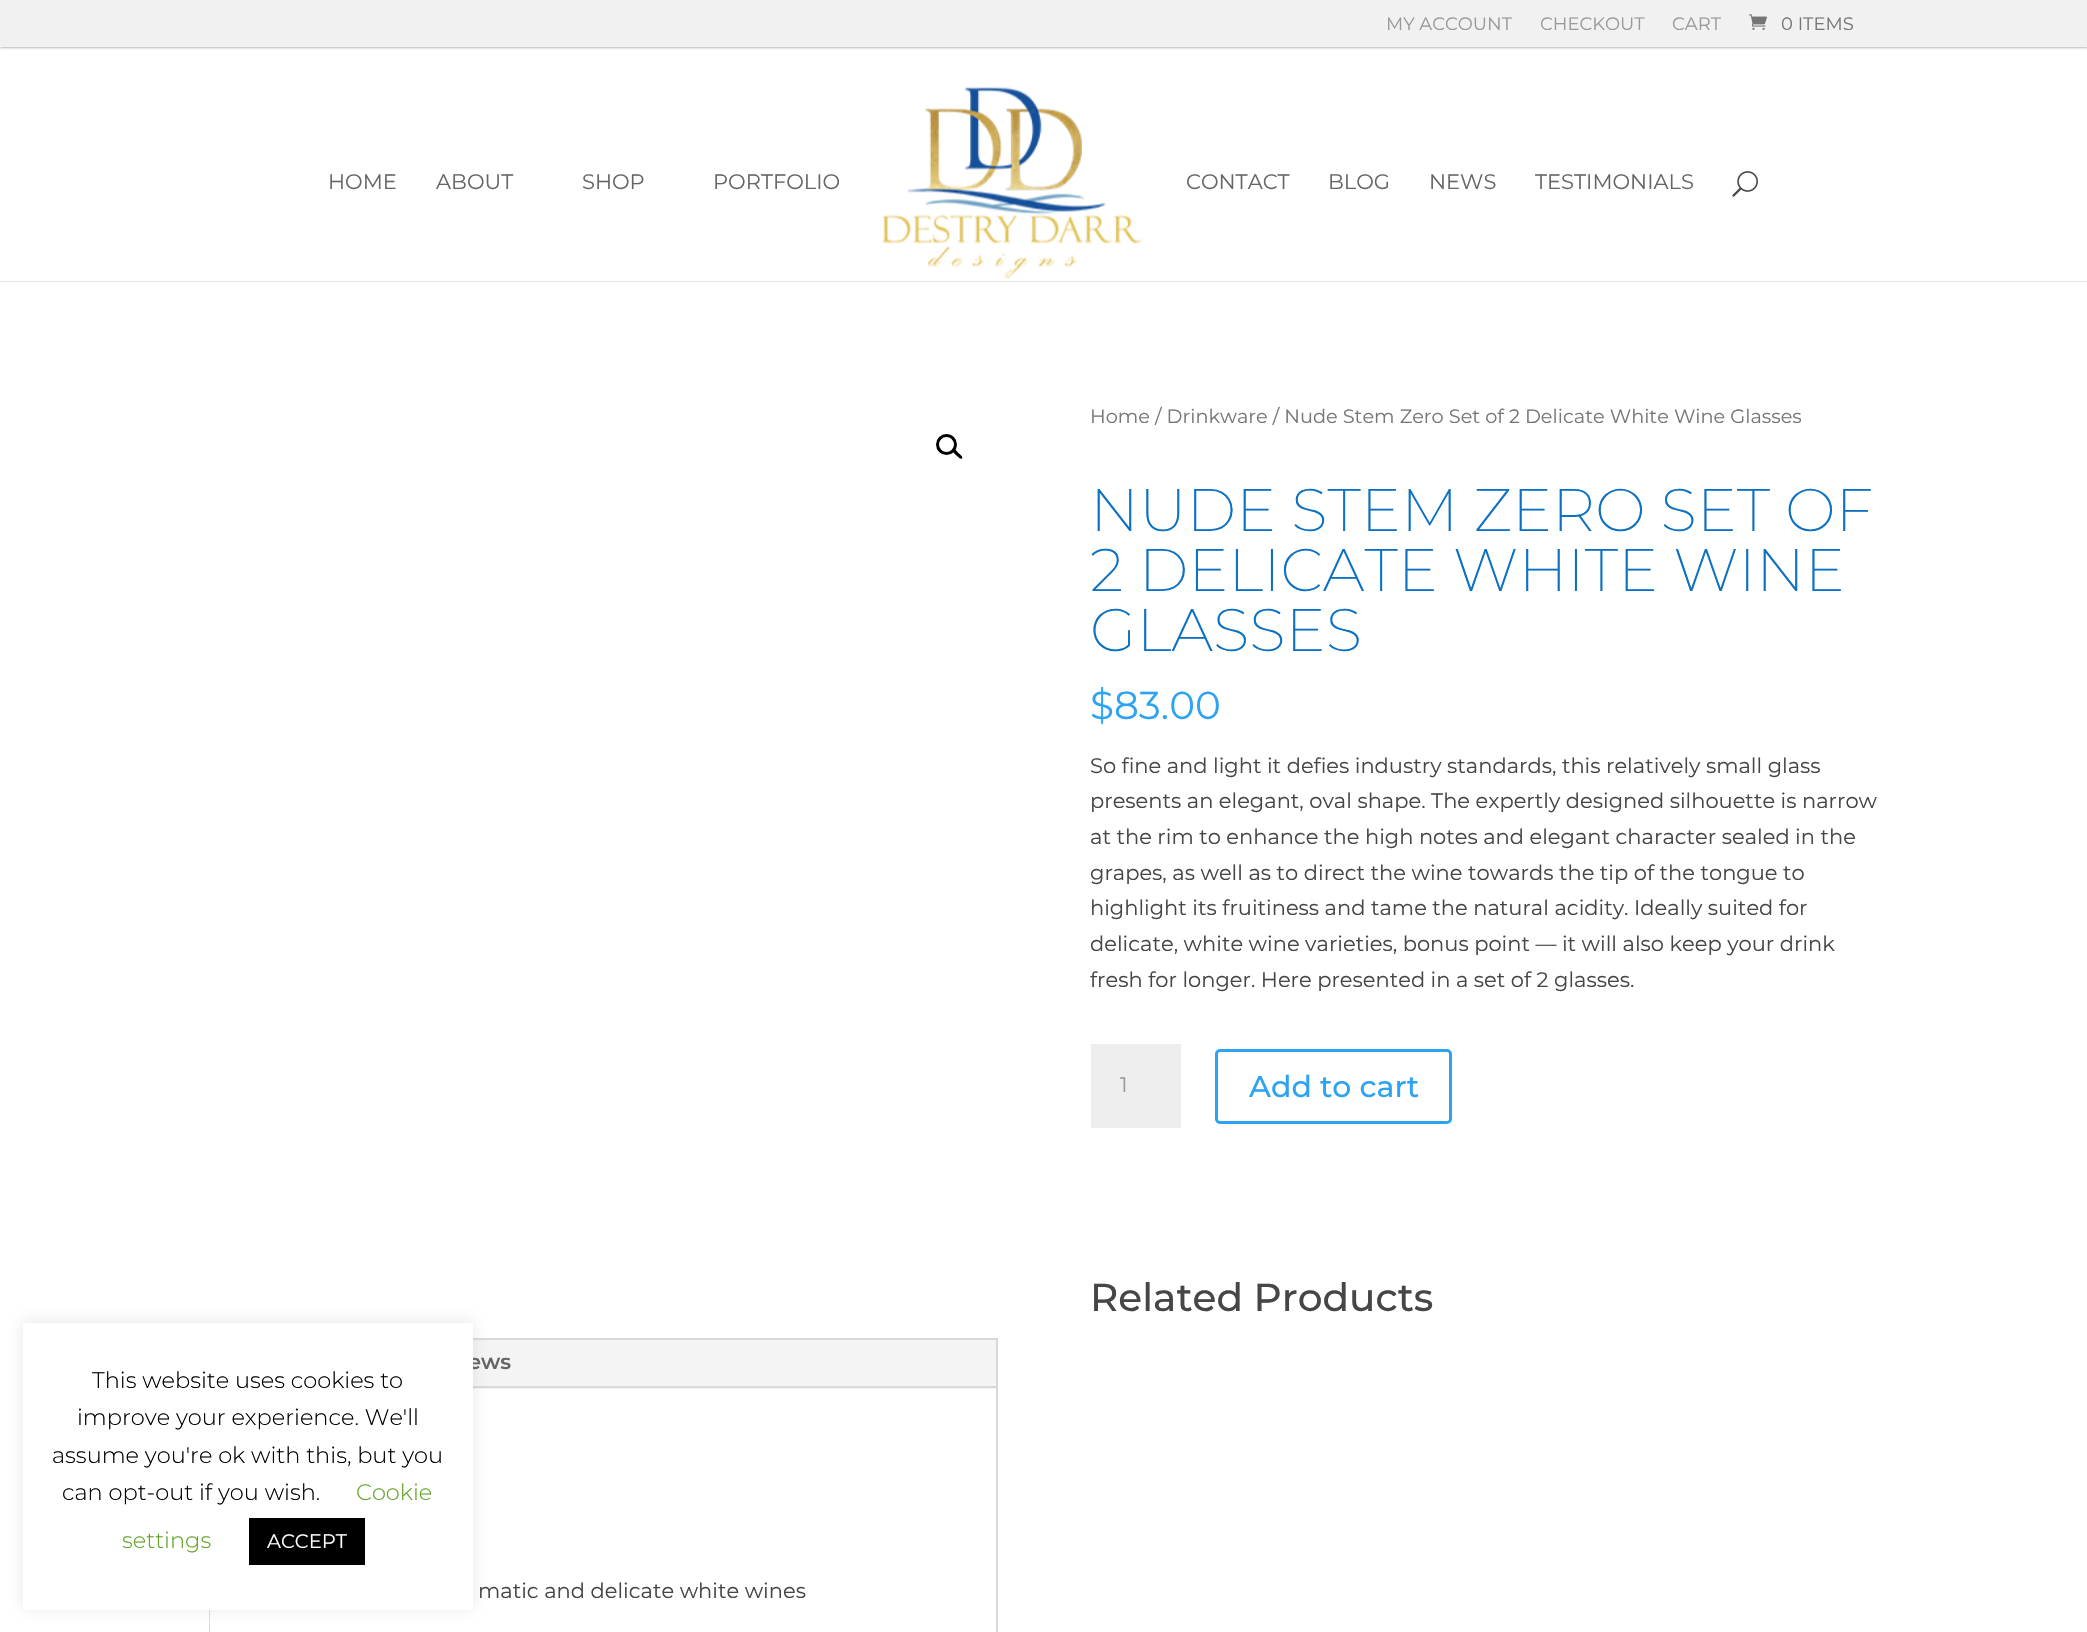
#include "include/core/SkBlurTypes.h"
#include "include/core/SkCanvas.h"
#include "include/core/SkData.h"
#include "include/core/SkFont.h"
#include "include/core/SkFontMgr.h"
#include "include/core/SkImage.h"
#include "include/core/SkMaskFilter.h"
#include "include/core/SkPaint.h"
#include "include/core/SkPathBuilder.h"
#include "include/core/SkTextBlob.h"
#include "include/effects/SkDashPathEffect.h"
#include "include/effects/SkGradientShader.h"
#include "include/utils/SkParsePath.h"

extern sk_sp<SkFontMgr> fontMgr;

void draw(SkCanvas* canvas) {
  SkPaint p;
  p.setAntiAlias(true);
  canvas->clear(SK_ColorWHITE);
  p.setStyle(SkPaint::kStroke_Style);
  p.setStrokeWidth(2);
  p.setColor(SkColorSetRGB(217, 217, 217));
  canvas->drawRect(SkRect::MakeLTRB(210, 1339, 997, 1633), p);
  p.setStyle(SkPaint::kFill_Style);
  p.setColor(SkColorSetRGB(244, 244, 244));
  canvas->drawRect(SkRect::MakeLTRB(473, 1340, 996, 1389), p);
  p.setColor(SkColorSetRGB(217, 217, 217));
  canvas->drawRect(SkRect::MakeLTRB(473, 1386, 996, 1388), p);
  p.setColor(SK_ColorWHITE);
  canvas->drawRect(SkRect::MakeLTRB(210, 1389, 211, 1632), p);
  p.setColor(SkColorSetARGB(77, 172, 171, 171));
  p.setMaskFilter(SkMaskFilter::MakeBlur(kNormal_SkBlurStyle, 7.5f));
  canvas->drawRect(SkRect::MakeLTRB(23, 1322, 473, 1608), p);
  p.setMaskFilter(nullptr);
  p.setColor(SkColorSetARGB(128, 0, 0, 0));
  p.setMaskFilter(SkMaskFilter::MakeBlur(kNormal_SkBlurStyle, 1.5f));
  canvas->drawRect(SkRect::MakeLTRB(0, 0, 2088, 47), p);
  p.setMaskFilter(nullptr);
  p.setColor(SkColorSetRGB(241, 241, 241));
  canvas->drawRect(SkRect::MakeLTRB(0, 0, 2087, 47), p);
  canvas->drawImageRect(SkImages::DeferredFromEncodedData(SkData::MakeFromFileName("images/1.png")), SkRect::MakeLTRB(1749, 14, 1767, 30), SkSamplingOptions());
  p.setColor(SkColorSetRGB(230, 230, 230));
  canvas->drawRect(SkRect::MakeLTRB(0, 281, 2087, 282), p);
  canvas->drawImageRect(SkImages::DeferredFromEncodedData(SkData::MakeFromFileName("images/2.png")), SkRect::MakeLTRB(882, 87, 1143, 279), SkSamplingOptions());
  canvas->drawImageRect(SkImages::DeferredFromEncodedData(SkData::MakeFromFileName("images/3.png")), SkRect::MakeLTRB(1732, 171, 1758, 197), SkSamplingOptions());
  p.setColor(SkColorSetRGB(238, 238, 238));
  canvas->drawRect(SkRect::MakeLTRB(1091, 1044, 1181, 1128), p);
  p.setStyle(SkPaint::kStroke_Style);
  p.setStrokeWidth(3);
  p.setColor(SkColorSetRGB(46, 163, 242));
  canvas->drawRoundRect(SkRect::MakeLTRB(1216.5f, 1050.5f, 1450.5f, 1122.5f), 3.5f, 3.5f, p);
  p.setColor(SK_ColorBLACK);
  canvas->drawCircle(946.5f, 444.5f, 9, p);
  p.setStyle(SkPaint::kFill_Style);
  canvas->drawPath(SkPathBuilder().moveTo(953.5f, 450).cubicTo(955, 448, 957.5f, 452, 958.5f, 453).cubicTo(959.5f, 454, 963.5f, 456.5f, 962, 458.5f).cubicTo(960, 460, 957.5f, 456, 956.5f, 455.5f).cubicTo(955.5f, 454.5f, 951.5f, 451.5f, 953.5f, 450).close().detach(), p);
  SkFont font1(fontMgr->matchFamilyStyle("Montserrat", SkFontStyle::Normal()), 18);
  font1.setSubpixel(true);
  p.setColor(SkColorSetRGB(153, 153, 153));
  canvas->drawString("MY ACCOUNT", 1386, 30, font1, p);
  canvas->drawString("CHECKOUT", 1540, 30, font1, p);
  canvas->drawString("CART", 1672, 30, font1, p);
  p.setColor(SkColorSetRGB(118, 118, 118));
  canvas->drawString("0 ITEMS", 1781, 30, font1, p);
  SkFont font2(fontMgr->matchFamilyStyle("Montserrat", SkFontStyle::Normal()), 21);
  font2.setSubpixel(true);
  p.setColor(SkColorSetRGB(102, 102, 102));
  canvas->drawString("HOME", 328, 189, font2, p);
  canvas->drawString("ABOUT", 436, 189, font2, p);
  canvas->drawString("SHOP", 582, 189, font2, p);
  canvas->drawString("PORTFOLIO", 713, 189, font2, p);
  canvas->drawString("CONTACT", 1186, 189, font2, p);
  canvas->drawString("BLOG", 1328, 189, font2, p);
  canvas->drawString("NEWS", 1429, 189, font2, p);
  canvas->drawString("TESTIMONIALS", 1535, 189, font2, p);
  SkFont font3(fontMgr->matchFamilyStyle("Montserrat", SkFontStyle::Normal()), 19.3f);
  font3.setSubpixel(true);
  p.setColor(SkColorSetRGB(118, 118, 118));
  canvas->drawString("Home / Drinkware / Nude Stem Zero Set of 2 Delicate White Wine Glasses", 1090, 423, font3, p);
  SkFont font4(fontMgr->matchFamilyStyle("Montserrat", SkFontStyle(200, SkFontStyle::kNormal_Width, SkFontStyle::kUpright_Slant)), 60);
  font4.setSubpixel(true);
  p.setColor(SkColorSetRGB(12, 113, 195));
  canvas->drawString("NUDE STEM ZERO SET OF", 1090, 531, font4, p);
  canvas->drawString("2 DELICATE WHITE WINE", 1090, 591, font4, p);
  canvas->drawString("GLASSES", 1090, 651, font4, p);
  SkFont font5(fontMgr->matchFamilyStyle("Montserrat", SkFontStyle::Normal()), 39);
  font5.setSubpixel(true);
  p.setColor(SkColorSetRGB(46, 163, 242));
  canvas->drawString("$83.00", 1090, 719, font5, p);
  p.setColor(SkColorSetRGB(70, 70, 70));
  canvas->drawString("So fine and light it defies industry standards, this relatively small glass", 1090, 773, font2, p);
  canvas->drawString("presents an elegant, oval shape. The expertly designed silhouette is narrow", 1090, 808, font2, p);
  canvas->drawString("at the rim to enhance the high notes and elegant character sealed in the", 1090, 844, font2, p);
  canvas->drawString("grapes, as well as to direct the wine towards the tip of the tongue to", 1090, 880, font2, p);
  canvas->drawString("highlight its fruitiness and tame the natural acidity. Ideally suited for", 1090, 915, font2, p);
  canvas->drawString("delicate, white wine varieties, bonus point — it will also keep your drink", 1090, 951, font2, p);
  canvas->drawString("fresh for longer. Here presented in a set of 2 glasses.", 1090, 987, font2, p);
  p.setColor(SkColorSetRGB(153, 153, 153));
  canvas->drawString("1", 1120, 1092, font2, p);
  SkFont font6(fontMgr->matchFamilyStyle("Montserrat", SkFontStyle(500, SkFontStyle::kNormal_Width, SkFontStyle::kUpright_Slant)), 30);
  font6.setSubpixel(true);
  p.setColor(SkColorSetRGB(46, 163, 242));
  canvas->drawString("Add to cart", 1249, 1097, font6, p);
  SkFont font7(fontMgr->matchFamilyStyle("Montserrat", SkFontStyle(500, SkFontStyle::kNormal_Width, SkFontStyle::kUpright_Slant)), 39);
  font7.setSubpixel(true);
  p.setColor(SkColorSetRGB(70, 70, 70));
  canvas->drawString("Related Products", 1090, 1311, font7, p);
  SkFont font8(fontMgr->matchFamilyStyle("Montserrat", SkFontStyle(600, SkFontStyle::kNormal_Width, SkFontStyle::kUpright_Slant)), 21);
  font8.setSubpixel(true);
  p.setColor(SkColorSetRGB(102, 102, 102));
  canvas->drawString("ews", 468, 1369, font8, p);
  p.setColor(SK_ColorWHITE);
  canvas->drawRect(SkRect::MakeLTRB(23, 1323, 473, 1610), p);
  p.setColor(SK_ColorBLACK);
  canvas->drawRect(SkRect::MakeLTRB(249, 1518, 365, 1565), p);
  SkFont font9(fontMgr->matchFamilyStyle("Montserrat", SkFontStyle::Normal()), 19.5f);
  font9.setSubpixel(true);
  p.setColor(SK_ColorWHITE);
  canvas->drawString("ACCEPT", 267, 1548, font9, p);
  SkFont font10(fontMgr->matchFamilyStyle("Montserrat", SkFontStyle(300, SkFontStyle::kNormal_Width, SkFontStyle::kUpright_Slant)), 22.5f);
  font10.setSubpixel(true);
  p.setColor(SkColorSetRGB(98, 163, 41));
  canvas->drawString("settings", 122, 1548, font10, p);
  canvas->drawString("Cookie", 356, 1500, font10, p);
  p.setColor(SK_ColorBLACK);
  canvas->drawString("can opt-out if you wish.", 62, 1500, font10, p);
  canvas->drawString("assume you're ok with this, but you", 52, 1463, font10, p);
  canvas->drawString("improve your experience. We'll", 77, 1425, font10, p);
  canvas->drawString("This website uses cookies to", 92, 1388, font10, p);
  p.setColor(SkColorSetRGB(70, 70, 70));
  canvas->drawString("matic and delicate white wines", 478, 1598, font2, p);
}
